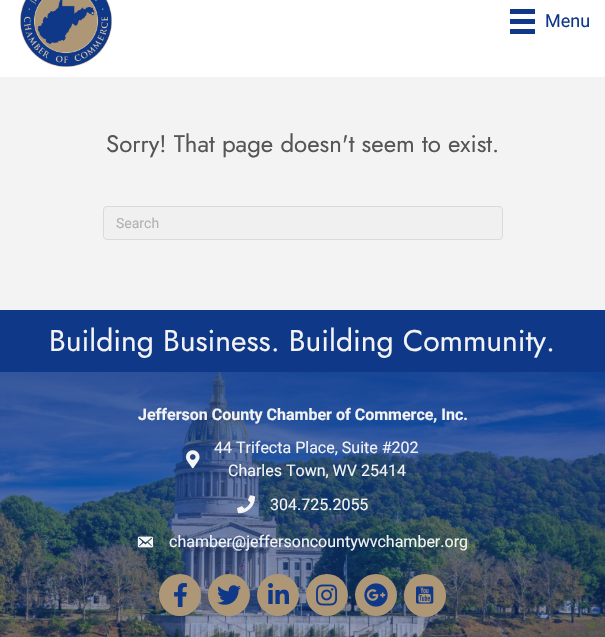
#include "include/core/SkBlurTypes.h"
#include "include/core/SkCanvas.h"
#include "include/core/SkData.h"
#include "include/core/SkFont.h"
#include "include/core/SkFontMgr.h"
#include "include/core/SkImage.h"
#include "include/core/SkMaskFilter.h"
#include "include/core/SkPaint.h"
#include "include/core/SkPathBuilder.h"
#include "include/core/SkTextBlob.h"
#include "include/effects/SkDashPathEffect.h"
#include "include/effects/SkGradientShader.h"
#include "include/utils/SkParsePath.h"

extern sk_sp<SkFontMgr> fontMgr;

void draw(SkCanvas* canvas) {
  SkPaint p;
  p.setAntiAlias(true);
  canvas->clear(SK_ColorWHITE);
  canvas->drawImageRect(SkImages::DeferredFromEncodedData(SkData::MakeFromFileName("images/1.png")), SkRect::MakeLTRB(20, 0, 112, 67), SkSamplingOptions());
  p.setColor(SkColorSetRGB(15, 56, 136));
  canvas->drawRect(SkRect::MakeLTRB(510, 9, 535, 14), p);
  canvas->drawRect(SkRect::MakeLTRB(510, 19, 535, 24), p);
  canvas->drawRect(SkRect::MakeLTRB(510, 29, 535, 34), p);
  p.setColor(SkColorSetRGB(243, 243, 243));
  canvas->drawRect(SkRect::MakeLTRB(0, 77, 605, 310), p);
  p.setColor(SkColorSetRGB(240, 240, 240));
  canvas->drawRoundRect(SkRect::MakeLTRB(103.5f, 206.5f, 502.5f, 239.5f), 3.5f, 3.5f, p);
  p.setStyle(SkPaint::kStroke_Style);
  p.setStrokeWidth(1);
  p.setColor(SkColorSetRGB(218, 218, 218));
  canvas->drawRoundRect(SkRect::MakeLTRB(103.5f, 206.5f, 502.5f, 239.5f), 3.5f, 3.5f, p);
  p.setStyle(SkPaint::kFill_Style);
  p.setColor(SkColorSetRGB(15, 56, 136));
  canvas->drawRect(SkRect::MakeLTRB(0, 310, 605, 372), p);
  canvas->drawImageRect(SkImages::DeferredFromEncodedData(SkData::MakeFromFileName("images/2.png")), SkRect::MakeLTRB(0, 372, 605, 637), SkSamplingOptions());
  canvas->drawImageRect(SkImages::DeferredFromEncodedData(SkData::MakeFromFileName("images/3.png")), SkRect::MakeLTRB(186, 450, 200, 469), SkSamplingOptions());
  canvas->drawImageRect(SkImages::DeferredFromEncodedData(SkData::MakeFromFileName("images/4.png")), SkRect::MakeLTRB(237, 495, 255, 514), SkSamplingOptions());
  canvas->drawImageRect(SkImages::DeferredFromEncodedData(SkData::MakeFromFileName("images/5.png")), SkRect::MakeLTRB(137, 536, 154, 548), SkSamplingOptions());
  p.setColor(SkColorSetRGB(174, 151, 119));
  canvas->drawCircle(180, 595, 21, p);
  canvas->drawImageRect(SkImages::DeferredFromEncodedData(SkData::MakeFromFileName("images/6.png")), SkRect::MakeLTRB(174, 583, 187, 607), SkSamplingOptions());
  canvas->drawCircle(229, 595, 21, p);
  canvas->drawImageRect(SkImages::DeferredFromEncodedData(SkData::MakeFromFileName("images/7.png")), SkRect::MakeLTRB(217, 585, 241, 605), SkSamplingOptions());
  canvas->drawCircle(278, 595, 21, p);
  canvas->drawImageRect(SkImages::DeferredFromEncodedData(SkData::MakeFromFileName("images/8.png")), SkRect::MakeLTRB(268, 583, 289, 604), SkSamplingOptions());
  canvas->drawCircle(327, 595, 21, p);
  canvas->drawImageRect(SkImages::DeferredFromEncodedData(SkData::MakeFromFileName("images/9.png")), SkRect::MakeLTRB(316, 584, 338, 606), SkSamplingOptions());
  canvas->drawCircle(376, 595, 21, p);
  canvas->drawImageRect(SkImages::DeferredFromEncodedData(SkData::MakeFromFileName("images/10.png")), SkRect::MakeLTRB(364, 583, 388, 607), SkSamplingOptions());
  canvas->drawRoundRect(SkRect::MakeLTRB(404, 574, 446, 617), 21, 21, p);
  canvas->drawImageRect(SkImages::DeferredFromEncodedData(SkData::MakeFromFileName("images/11.png")), SkRect::MakeLTRB(416, 586, 434, 604), SkSamplingOptions());
  SkFont font1(fontMgr->matchFamilyStyle("Roboto", SkFontStyle::Normal()), 18);
  font1.setSubpixel(true);
  p.setColor(SkColorSetRGB(15, 56, 136));
  canvas->drawString("Menu", 545, 27, font1, p);
  SkFont font2(fontMgr->matchFamilyStyle("Jost", SkFontStyle::Normal()), 24);
  font2.setSubpixel(true);
  p.setColor(SkColorSetRGB(85, 85, 85));
  canvas->drawString("Sorry! That page doesn't seem to exist.", 106, 152, font2, p);
  SkFont font3(fontMgr->matchFamilyStyle("Roboto", SkFontStyle::Normal()), 14);
  font3.setSubpixel(true);
  p.setColor(SkColorSetRGB(178, 178, 178));
  canvas->drawString("Search", 116, 228, font3, p);
  SkFont font4(fontMgr->matchFamilyStyle("Jost", SkFontStyle::Normal()), 30);
  font4.setSubpixel(true);
  p.setColor(SkColorSetRGB(243, 243, 243));
  canvas->drawString("Building Business. Building Community.", 49, 351, font4, p);
  SkFont font5(fontMgr->matchFamilyStyle("Roboto", SkFontStyle::Bold()), 16);
  font5.setSubpixel(true);
  canvas->drawString("Jefferson County Chamber of Commerce, Inc.", 138, 420, font5, p);
  SkFont font6(fontMgr->matchFamilyStyle("Roboto", SkFontStyle::Normal()), 16);
  font6.setSubpixel(true);
  canvas->drawString("44 Trifecta Place, Suite #202", 214, 453, font6, p);
  canvas->drawString("Charles Town, WV 25414", 228, 476, font6, p);
  canvas->drawString("304.725.2055", 270, 510, font6, p);
  canvas->drawString("chamber@jeffersoncountywvchamber.org", 169, 547, font6, p);
}
